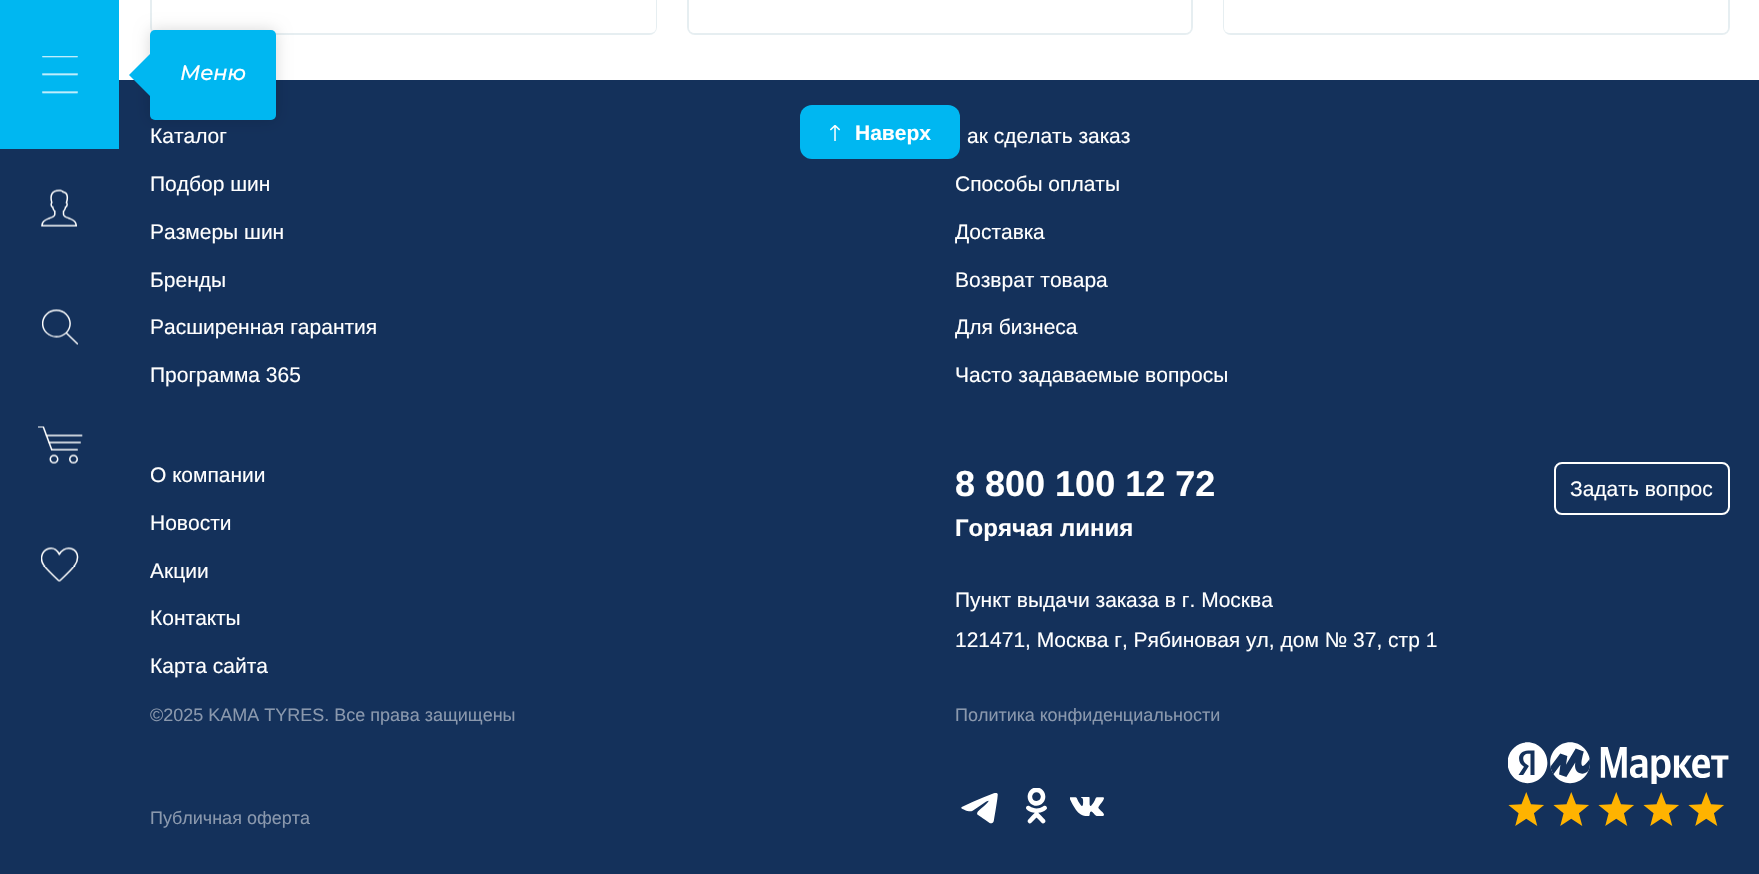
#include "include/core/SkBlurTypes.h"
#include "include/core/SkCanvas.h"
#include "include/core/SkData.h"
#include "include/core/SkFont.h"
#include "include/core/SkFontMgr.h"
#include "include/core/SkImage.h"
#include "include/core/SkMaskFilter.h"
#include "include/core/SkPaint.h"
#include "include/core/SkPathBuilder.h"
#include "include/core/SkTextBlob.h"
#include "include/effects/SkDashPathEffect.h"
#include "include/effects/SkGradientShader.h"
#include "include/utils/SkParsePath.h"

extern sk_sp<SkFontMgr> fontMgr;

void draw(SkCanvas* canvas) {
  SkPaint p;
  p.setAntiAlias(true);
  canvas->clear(SkColorSetRGB(20, 49, 91));
  p.setColor(SkColorSetRGB(0, 183, 241));
  canvas->drawRect(SkRect::MakeLTRB(0, 0, 119, 149), p);
  canvas->drawImageRect(SkImages::DeferredFromEncodedData(SkData::MakeFromFileName("images/1.png")), SkRect::MakeLTRB(42, 56, 78, 94), SkSamplingOptions());
  p.setColor(SK_ColorWHITE);
  canvas->drawRect(SkRect::MakeLTRB(119, 0, 1759, 80), p);
  p.setStyle(SkPaint::kStroke_Style);
  p.setStrokeWidth(2);
  p.setColor(SkColorSetRGB(230, 238, 241));
  canvas->drawRoundRect(SkRect::MakeLTRB(151, -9, 656, 34), 7, 7, p);
  p.setStyle(SkPaint::kFill_Style);
  p.setColor(SK_ColorWHITE);
  canvas->drawRoundRect(SkRect::MakeLTRB(152, -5, 656, 33), 5, 5, p);
  p.setColor(SkColorSetARGB(38, 0, 0, 0));
  p.setMaskFilter(SkMaskFilter::MakeBlur(kNormal_SkBlurStyle, 7.5f));
  canvas->drawRoundRect(SkRect::MakeLTRB(150, 30, 276, 120), 5, 5, p);
  p.setMaskFilter(nullptr);
  p.setColor(SkColorSetRGB(0, 183, 241));
  canvas->drawRoundRect(SkRect::MakeLTRB(150, 30, 276, 120), 5, 5, p);
  canvas->drawPath(SkPathBuilder().moveTo(152, 52).lineTo(152, 98).lineTo(129, 75).close().detach(), p);
  canvas->drawImageRect(SkImages::DeferredFromEncodedData(SkData::MakeFromFileName("images/2.png")), SkRect::MakeLTRB(41, 189, 77, 227), SkSamplingOptions());
  canvas->drawImageRect(SkImages::DeferredFromEncodedData(SkData::MakeFromFileName("images/3.png")), SkRect::MakeLTRB(42, 309, 78, 345), SkSamplingOptions());
  canvas->drawImageRect(SkImages::DeferredFromEncodedData(SkData::MakeFromFileName("images/4.png")), SkRect::MakeLTRB(38, 426, 83, 464), SkSamplingOptions());
  canvas->drawImageRect(SkImages::DeferredFromEncodedData(SkData::MakeFromFileName("images/5.png")), SkRect::MakeLTRB(41, 547, 79, 582), SkSamplingOptions());
  p.setStyle(SkPaint::kStroke_Style);
  p.setColor(SkColorSetRGB(230, 238, 241));
  canvas->drawRoundRect(SkRect::MakeLTRB(688, -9, 1192, 34), 7, 7, p);
  p.setStyle(SkPaint::kFill_Style);
  p.setColor(SK_ColorWHITE);
  canvas->drawRoundRect(SkRect::MakeLTRB(689, -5, 1191, 33), 5, 5, p);
  p.setStyle(SkPaint::kStroke_Style);
  p.setColor(SkColorSetRGB(230, 238, 241));
  canvas->drawRoundRect(SkRect::MakeLTRB(1224, -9, 1729, 34), 7, 7, p);
  p.setStyle(SkPaint::kFill_Style);
  p.setColor(SK_ColorWHITE);
  canvas->drawRoundRect(SkRect::MakeLTRB(1224, -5, 1728, 33), 5, 5, p);
  p.setColor(SkColorSetRGB(0, 183, 241));
  canvas->drawRoundRect(SkRect::MakeLTRB(800, 105, 960, 159), 12, 12, p);
  canvas->drawImageRect(SkImages::DeferredFromEncodedData(SkData::MakeFromFileName("images/6.png")), SkRect::MakeLTRB(830, 125, 840, 141), SkSamplingOptions());
  p.setStyle(SkPaint::kStroke_Style);
  p.setColor(SK_ColorWHITE);
  canvas->drawRoundRect(SkRect::MakeLTRB(1555, 463, 1729, 514), 7, 7, p);
  canvas->drawImageRect(SkImages::DeferredFromEncodedData(SkData::MakeFromFileName("images/7.png")), SkRect::MakeLTRB(961, 793, 998, 824), SkSamplingOptions());
  canvas->drawImageRect(SkImages::DeferredFromEncodedData(SkData::MakeFromFileName("images/8.png")), SkRect::MakeLTRB(1026, 788, 1047, 824), SkSamplingOptions());
  canvas->drawImageRect(SkImages::DeferredFromEncodedData(SkData::MakeFromFileName("images/9.png")), SkRect::MakeLTRB(1070, 797, 1104, 816), SkSamplingOptions());
  canvas->drawImageRect(SkImages::DeferredFromEncodedData(SkData::MakeFromFileName("images/10.png")), SkRect::MakeLTRB(1508, 742, 1729, 826), SkSamplingOptions());
  SkFont font1(fontMgr->matchFamilyStyle("Montserrat", SkFontStyle(500, SkFontStyle::kNormal_Width, SkFontStyle::kItalic_Slant)), 21);
  font1.setSubpixel(true);
  p.setStyle(SkPaint::kFill_Style);
  canvas->drawString("Меню", 180, 80, font1, p);
  SkFont font2(fontMgr->matchFamilyStyle("Liberation Sans", SkFontStyle::Bold()), 21);
  font2.setSubpixel(true);
  canvas->drawString("Наверх", 855, 140, font2, p);
  SkFont font3(fontMgr->matchFamilyStyle("Liberation Sans", SkFontStyle::Normal()), 21);
  font3.setSubpixel(true);
  canvas->drawString("Каталог", 150, 143, font3, p);
  canvas->drawString("Подбор шин", 150, 191, font3, p);
  canvas->drawString("Размеры шин", 150, 239, font3, p);
  canvas->drawString("Бренды", 150, 287, font3, p);
  canvas->drawString("Расширенная гарантия", 150, 334, font3, p);
  canvas->drawString("Программа 365", 150, 382, font3, p);
  canvas->drawString("ак сделать заказ", 967, 143, font3, p);
  canvas->drawString("Способы оплаты", 955, 191, font3, p);
  canvas->drawString("Доставка", 955, 239, font3, p);
  canvas->drawString("Возврат товара", 955, 287, font3, p);
  canvas->drawString("Для бизнеса", 955, 334, font3, p);
  canvas->drawString("Часто задаваемые вопросы", 955, 382, font3, p);
  canvas->drawString("О компании", 150, 482, font3, p);
  canvas->drawString("Новости", 150, 530, font3, p);
  canvas->drawString("Акции", 150, 578, font3, p);
  canvas->drawString("Контакты", 150, 625, font3, p);
  canvas->drawString("Карта сайта", 150, 673, font3, p);
  SkFont font4(fontMgr->matchFamilyStyle("Liberation Sans", SkFontStyle::Bold()), 36);
  font4.setSubpixel(true);
  canvas->drawString("8 800 100 12 72", 955, 496, font4, p);
  SkFont font5(fontMgr->matchFamilyStyle("Liberation Sans", SkFontStyle::Bold()), 24);
  font5.setSubpixel(true);
  canvas->drawString("Горячая линия", 955, 536, font5, p);
  canvas->drawString("Задать вопрос", 1570, 496, font3, p);
  canvas->drawString("Пункт выдачи заказа в г. Москва", 955, 607, font3, p);
  canvas->drawString("121471, Москва г, Рябиновая ул, дом № 37, стр 1", 955, 647, font3, p);
  SkFont font6(fontMgr->matchFamilyStyle("Liberation Sans", SkFontStyle::Normal()), 18);
  font6.setSubpixel(true);
  p.setColor(SkColorSetRGB(138, 152, 173));
  canvas->drawString("©2025 KAMA TYRES. Все права защищены", 150, 721, font6, p);
  canvas->drawString("Политика конфиденциальности", 955, 721, font6, p);
  canvas->drawString("Публичная оферта", 150, 824, font6, p);
}
